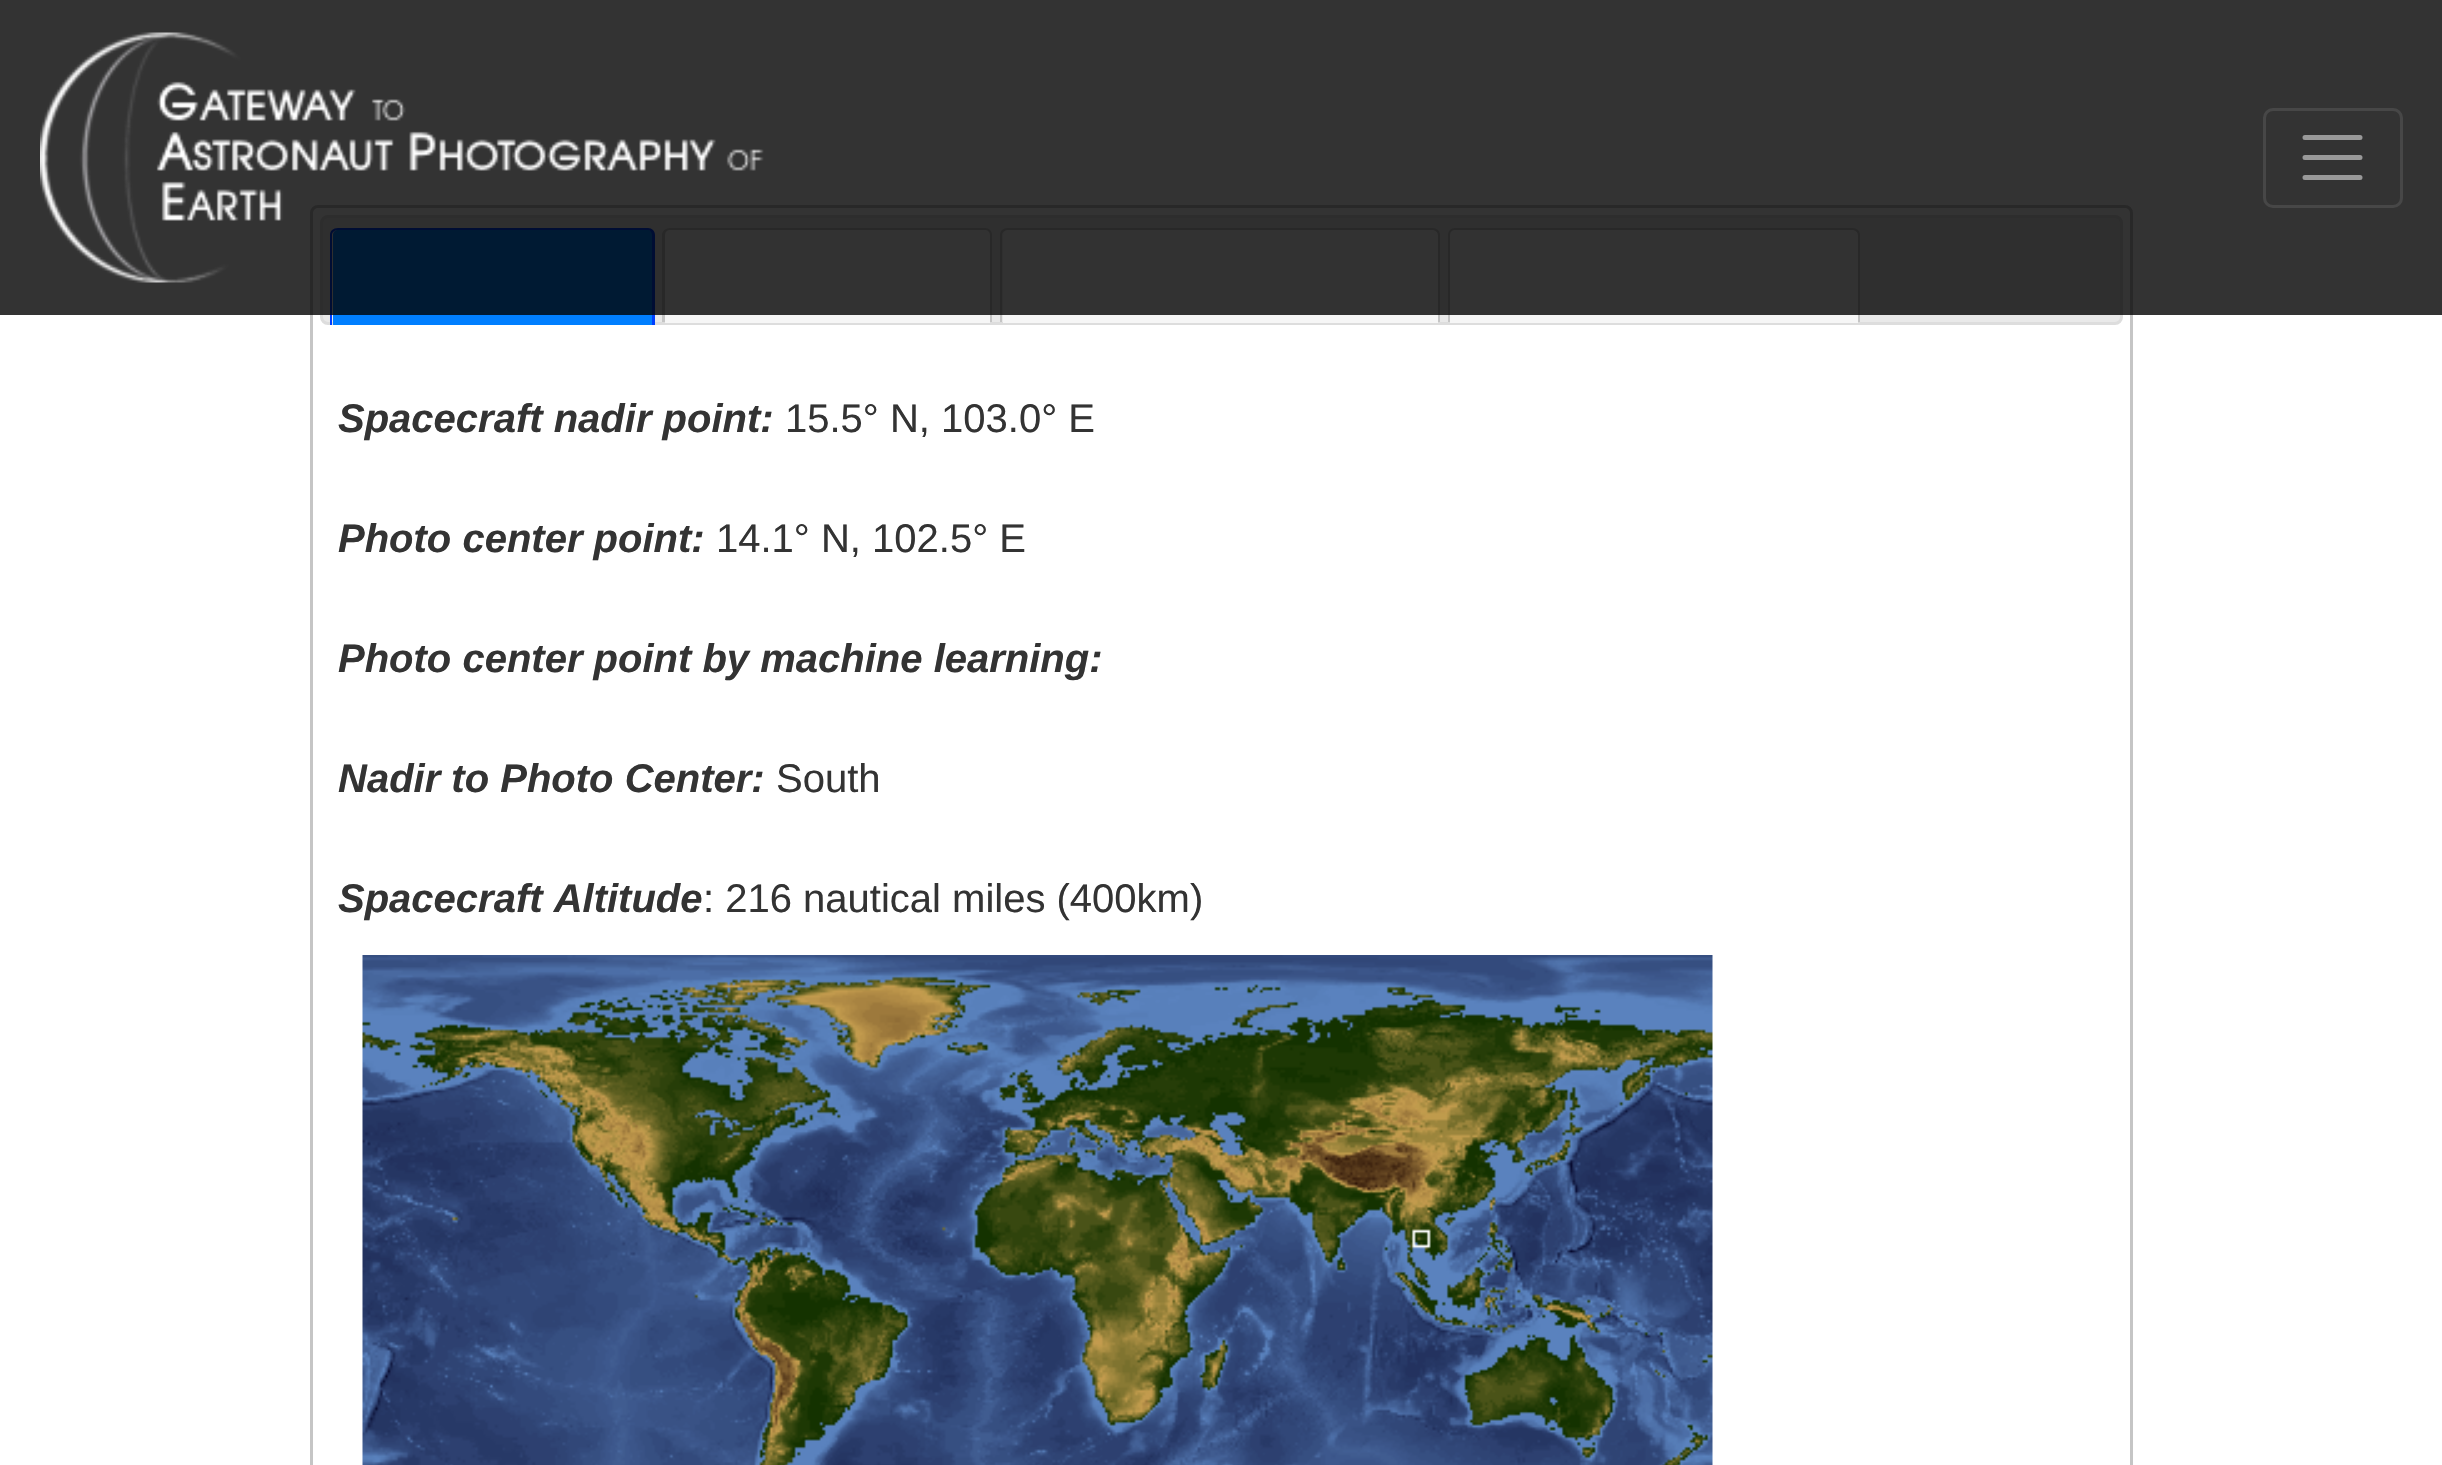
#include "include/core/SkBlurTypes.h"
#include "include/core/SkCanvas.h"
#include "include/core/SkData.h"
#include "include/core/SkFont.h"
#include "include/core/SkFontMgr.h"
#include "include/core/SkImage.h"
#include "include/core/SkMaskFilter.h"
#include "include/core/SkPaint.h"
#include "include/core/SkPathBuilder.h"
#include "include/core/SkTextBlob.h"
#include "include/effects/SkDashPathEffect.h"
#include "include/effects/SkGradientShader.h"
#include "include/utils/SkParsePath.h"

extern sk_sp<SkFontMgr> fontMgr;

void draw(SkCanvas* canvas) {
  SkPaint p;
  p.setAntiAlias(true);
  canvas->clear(SK_ColorWHITE);
  p.setStyle(SkPaint::kStroke_Style);
  p.setStrokeWidth(3);
  p.setColor(SkColorSetRGB(197, 197, 197));
  canvas->drawRoundRect(SkRect::MakeLTRB(311.5f, 206.5f, 2131.5f, 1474.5f), 6.5f, 6.5f, p);
  p.setStyle(SkPaint::kFill_Style);
  p.setColor(SkColorSetRGB(233, 233, 233));
  canvas->drawRoundRect(SkRect::MakeLTRB(321.5f, 216.5f, 2121.5f, 323.5f), 6.5f, 6.5f, p);
  p.setStyle(SkPaint::kStroke_Style);
  p.setColor(SkColorSetRGB(221, 221, 221));
  canvas->drawRoundRect(SkRect::MakeLTRB(321.5f, 216.5f, 2121.5f, 323.5f), 6.5f, 6.5f, p);
  p.setStyle(SkPaint::kFill_Style);
  p.setColor(SkColorSetRGB(0, 127, 255));
  canvas->drawPath(SkPathBuilder().moveTo(338, 230).lineTo(648, 230).cubicTo(651, 230, 653, 232, 653, 235).lineTo(653, 325).lineTo(333, 325).lineTo(333, 235).cubicTo(333, 232, 335, 230, 338, 230).close().detach(), p);
  p.setColor(SkColorSetRGB(0, 62, 255));
  canvas->drawPath(SkPathBuilder(SkPathFillType::kEvenOdd).moveTo(338, 228).lineTo(648, 228).cubicTo(652, 228, 655, 231, 655, 235).lineTo(655, 325).lineTo(330, 325).lineTo(330, 235).cubicTo(330, 231, 333, 228, 338, 228).close().moveTo(338, 230).lineTo(648, 230).cubicTo(650, 230, 652, 232, 652, 235).lineTo(652, 325).lineTo(332, 325).lineTo(332, 235).cubicTo(332, 232, 335, 230, 338, 230).close().detach(), p);
  p.setColor(SkColorSetRGB(246, 246, 246));
  canvas->drawPath(SkPathBuilder().moveTo(670, 230).lineTo(985, 230).cubicTo(988, 230, 990, 232, 990, 235).lineTo(990, 323).lineTo(665, 323).lineTo(665, 235).cubicTo(665, 232, 667, 230, 670, 230).close().detach(), p);
  p.setColor(SkColorSetRGB(197, 197, 197));
  canvas->drawPath(SkPathBuilder(SkPathFillType::kEvenOdd).moveTo(670, 228).lineTo(985, 228).cubicTo(989, 228, 992, 231, 992, 235).lineTo(992, 322).lineTo(662, 322).lineTo(662, 235).cubicTo(662, 231, 666, 228, 670, 228).close().moveTo(670, 230).lineTo(985, 230).cubicTo(988, 230, 990, 232, 990, 235).lineTo(990, 322).lineTo(665, 322).lineTo(665, 235).cubicTo(665, 232, 667, 230, 670, 230).close().detach(), p);
  p.setColor(SkColorSetRGB(246, 246, 246));
  canvas->drawPath(SkPathBuilder().moveTo(1008, 230).lineTo(1433, 230).cubicTo(1436, 230, 1438, 232, 1438, 235).lineTo(1438, 323).lineTo(1003, 323).lineTo(1003, 235).cubicTo(1003, 232, 1005, 230, 1008, 230).close().detach(), p);
  p.setColor(SkColorSetRGB(197, 197, 197));
  canvas->drawPath(SkPathBuilder(SkPathFillType::kEvenOdd).moveTo(1008, 228).lineTo(1432, 228).cubicTo(1437, 228, 1440, 231, 1440, 235).lineTo(1440, 322).lineTo(1000, 322).lineTo(1000, 235).cubicTo(1000, 231, 1003, 228, 1008, 228).close().moveTo(1008, 230).lineTo(1432, 230).cubicTo(1435, 230, 1438, 232, 1438, 235).lineTo(1438, 322).lineTo(1002, 322).lineTo(1002, 235).cubicTo(1002, 232, 1005, 230, 1008, 230).close().detach(), p);
  p.setColor(SkColorSetRGB(246, 246, 246));
  canvas->drawPath(SkPathBuilder().moveTo(1455, 230).lineTo(1853, 230).cubicTo(1856, 230, 1858, 232, 1858, 235).lineTo(1858, 323).lineTo(1450, 323).lineTo(1450, 235).cubicTo(1450, 232, 1452, 230, 1455, 230).close().detach(), p);
  p.setColor(SkColorSetRGB(197, 197, 197));
  canvas->drawPath(SkPathBuilder(SkPathFillType::kEvenOdd).moveTo(1455, 228).lineTo(1852, 228).cubicTo(1857, 228, 1860, 231, 1860, 235).lineTo(1860, 322).lineTo(1448, 322).lineTo(1448, 235).cubicTo(1448, 231, 1451, 228, 1455, 228).close().moveTo(1455, 230).lineTo(1852, 230).cubicTo(1855, 230, 1858, 232, 1858, 235).lineTo(1858, 322).lineTo(1450, 322).lineTo(1450, 235).cubicTo(1450, 232, 1452, 230, 1455, 230).close().detach(), p);
  p.setColor(SkColorSetARGB(204, 0, 0, 0));
  canvas->drawRect(SkRect::MakeLTRB(0, 0, 2442, 315), p);
  canvas->drawImageRect(SkImages::DeferredFromEncodedData(SkData::MakeFromFileName("images/1.png")), SkRect::MakeLTRB(40, 32, 764, 283), SkSamplingOptions());
  p.setStyle(SkPaint::kStroke_Style);
  p.setColor(SkColorSetRGB(71, 71, 71));
  canvas->drawRoundRect(SkRect::MakeLTRB(2264.5f, 109.5f, 2401.5f, 206.5f), 8.5f, 8.5f, p);
  p.setStrokeWidth(5);
  p.setStrokeCap(SkPaint::kRound_Cap);
  p.setColor(SkColorSetRGB(153, 153, 153));
  canvas->drawPath(SkPathBuilder().moveTo(2305, 137.5f).lineTo(2360, 137.5f).moveTo(2305, 157.5f).lineTo(2360, 157.5f).moveTo(2305, 177.5f).lineTo(2360, 177.5f).detach(), p);
  canvas->drawImageRect(SkImages::DeferredFromEncodedData(SkData::MakeFromFileName("images/2.png")), SkRect::MakeLTRB(362, 955, 1713, 1465), SkSamplingOptions());
  SkFont font1(fontMgr->matchFamilyStyle("Liberation Sans", SkFontStyle::BoldItalic()), 40);
  font1.setSubpixel(true);
  p.setStyle(SkPaint::kFill_Style);
  p.setColor(SkColorSetRGB(51, 51, 51));
  canvas->drawString("Spacecraft nadir point:", 338, 432, font1, p);
  SkFont font2(fontMgr->matchFamilyStyle("Liberation Sans", SkFontStyle::Normal()), 40);
  font2.setSubpixel(true);
  canvas->drawString("15.5° N, 103.0° E", 785, 432, font2, p);
  canvas->drawString("Photo center point:", 338, 552, font1, p);
  canvas->drawString("14.1° N, 102.5° E", 716, 552, font2, p);
  canvas->drawString("Photo center point by machine learning:", 338, 672, font1, p);
  canvas->drawString("Nadir to Photo Center:", 338, 792, font1, p);
  canvas->drawString("South", 776, 792, font2, p);
  canvas->drawString("Spacecraft Altitude", 338, 912, font1, p);
  canvas->drawString(": 216 nautical miles (400km)", 703, 912, font2, p);
}
